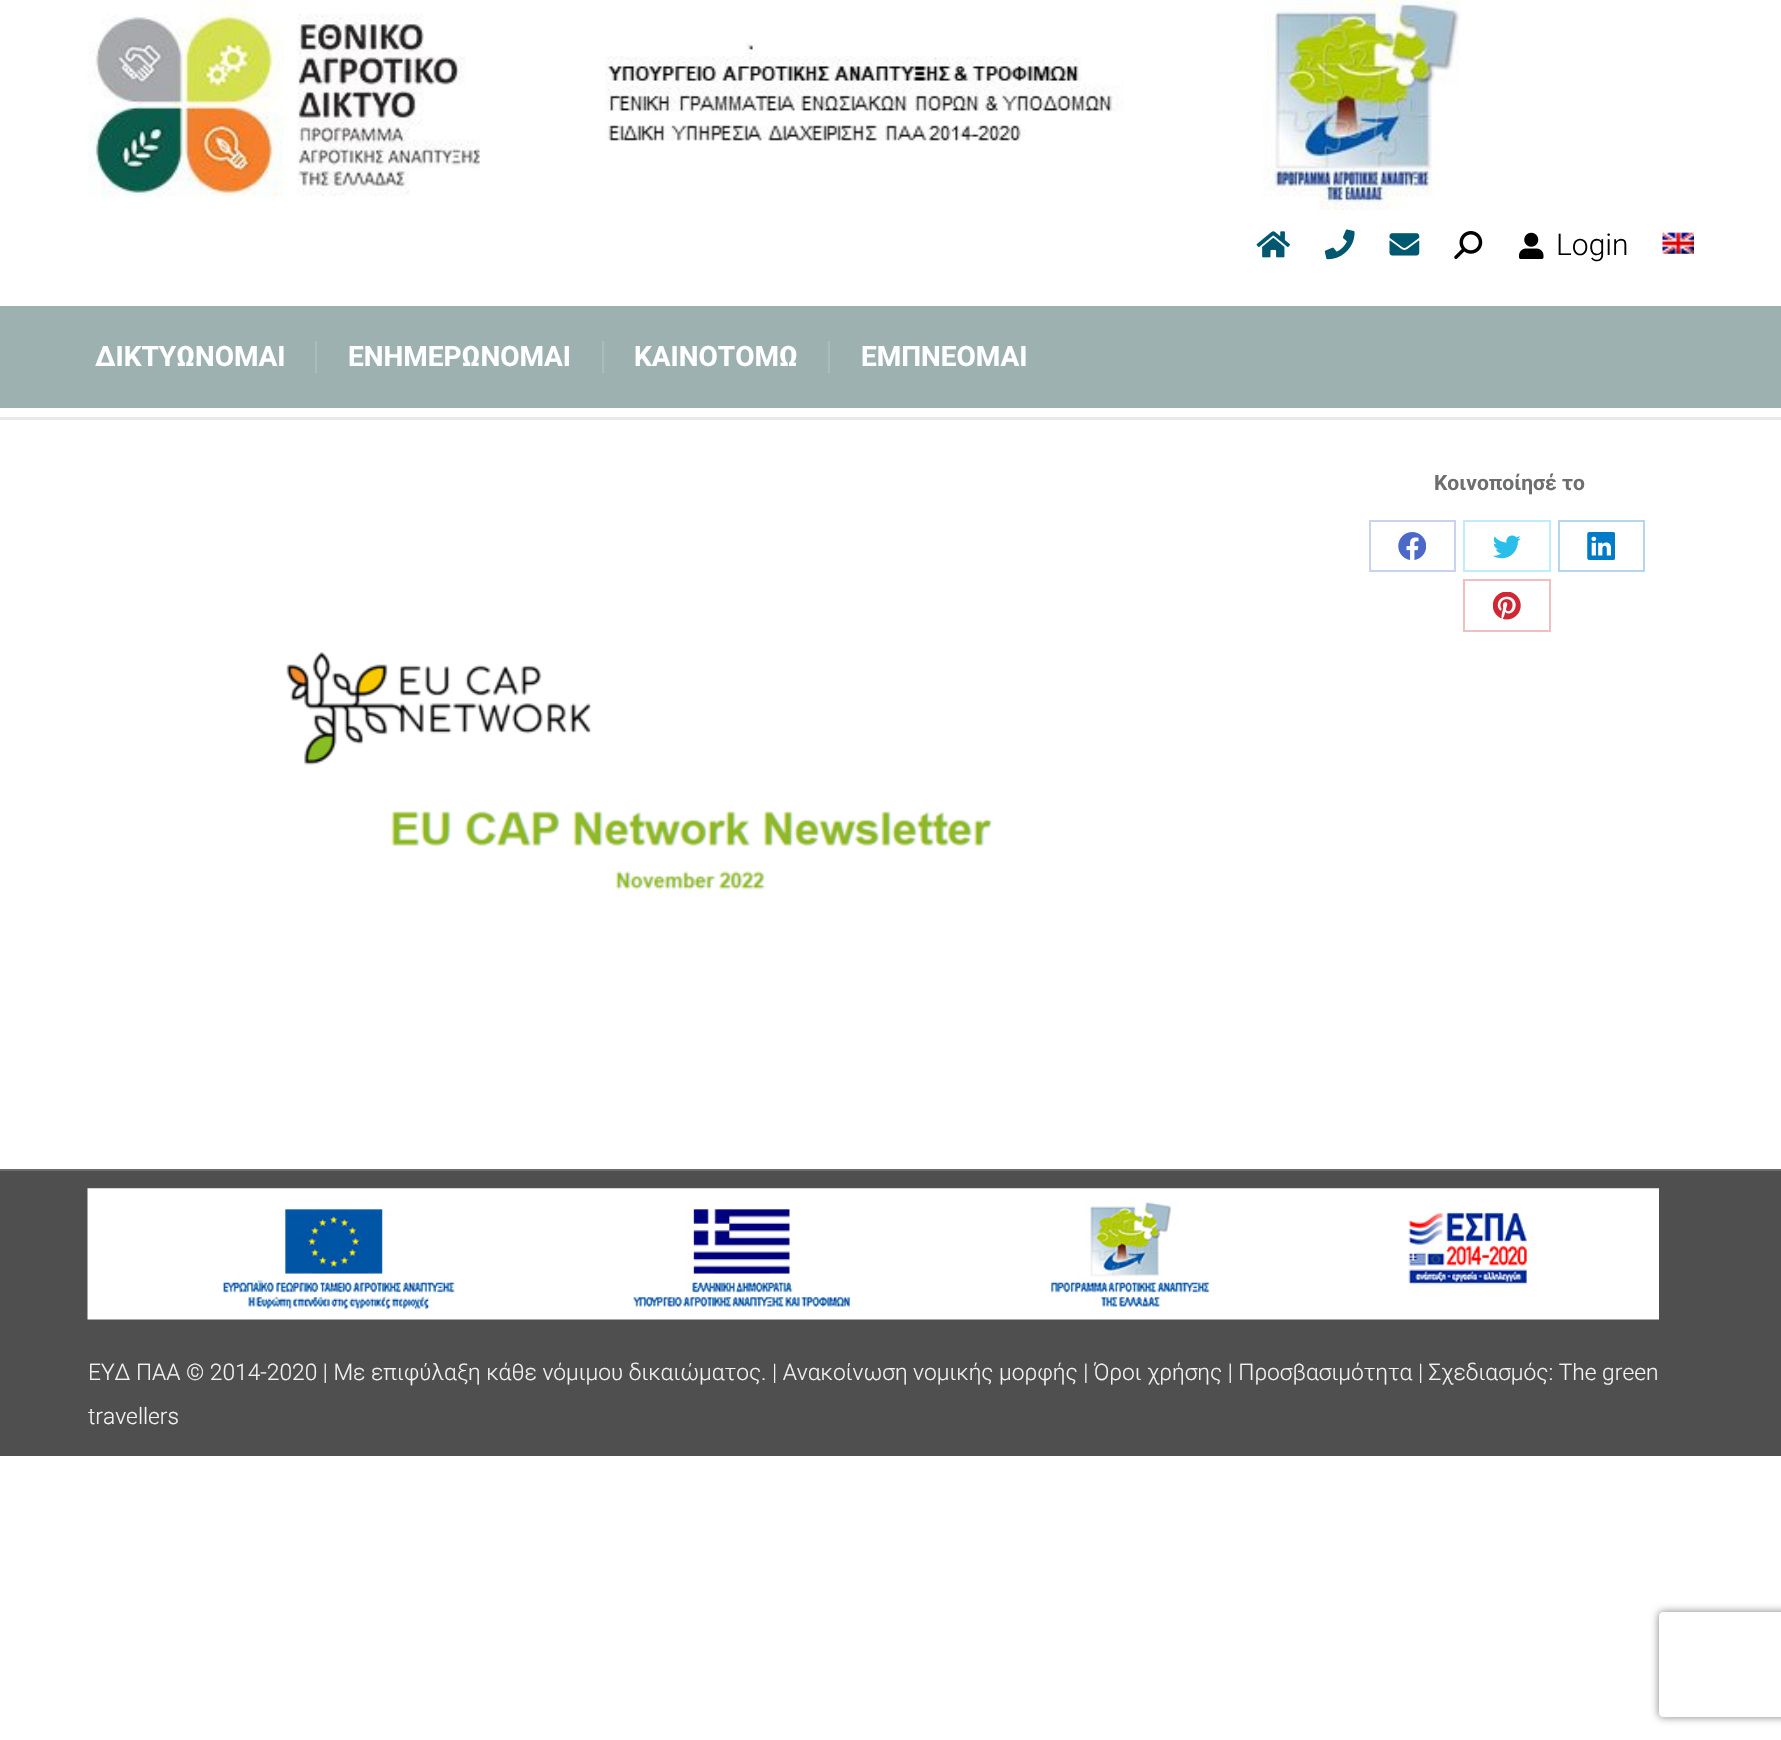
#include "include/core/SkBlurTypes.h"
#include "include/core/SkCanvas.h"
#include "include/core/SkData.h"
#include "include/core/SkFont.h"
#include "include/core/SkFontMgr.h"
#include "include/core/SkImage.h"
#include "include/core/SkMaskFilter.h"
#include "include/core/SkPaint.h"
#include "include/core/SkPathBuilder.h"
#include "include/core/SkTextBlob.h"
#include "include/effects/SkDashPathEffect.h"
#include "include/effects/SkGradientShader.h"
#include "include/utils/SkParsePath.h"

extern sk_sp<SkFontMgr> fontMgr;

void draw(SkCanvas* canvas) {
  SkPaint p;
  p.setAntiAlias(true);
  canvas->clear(SK_ColorWHITE);
  canvas->drawImageRect(SkImages::DeferredFromEncodedData(SkData::MakeFromFileName("images/1.png")), SkRect::MakeLTRB(87, 0, 1460, 210), SkSamplingOptions());
  canvas->drawImageRect(SkImages::DeferredFromEncodedData(SkData::MakeFromFileName("images/2.png")), SkRect::MakeLTRB(1256, 231, 1290, 258), SkSamplingOptions());
  canvas->drawImageRect(SkImages::DeferredFromEncodedData(SkData::MakeFromFileName("images/3.png")), SkRect::MakeLTRB(1324, 229, 1355, 260), SkSamplingOptions());
  canvas->drawImageRect(SkImages::DeferredFromEncodedData(SkData::MakeFromFileName("images/4.png")), SkRect::MakeLTRB(1389, 233, 1420, 256), SkSamplingOptions());
  canvas->drawImageRect(SkImages::DeferredFromEncodedData(SkData::MakeFromFileName("images/5.png")), SkRect::MakeLTRB(1454, 231, 1483, 259), SkSamplingOptions());
  canvas->drawImageRect(SkImages::DeferredFromEncodedData(SkData::MakeFromFileName("images/6.png")), SkRect::MakeLTRB(1519, 232, 1544, 259), SkSamplingOptions());
  canvas->drawImageRect(SkImages::DeferredFromEncodedData(SkData::MakeFromFileName("images/7.png")), SkRect::MakeLTRB(1662, 232, 1694, 254), SkSamplingOptions());
  p.setColor(SkColorSetRGB(156, 177, 176));
  canvas->drawRect(SkRect::MakeLTRB(0, 306, 1781, 408), p);
  p.setColor(SkColorSetRGB(170, 188, 187));
  canvas->drawRect(SkRect::MakeLTRB(315, 341, 317, 373), p);
  canvas->drawRect(SkRect::MakeLTRB(602, 341, 604, 373), p);
  canvas->drawRect(SkRect::MakeLTRB(828, 341, 830, 373), p);
  p.setColor(SkColorSetRGB(232, 232, 232));
  canvas->drawRect(SkRect::MakeLTRB(0, 417, 1781, 420), p);
  p.setStyle(SkPaint::kStroke_Style);
  p.setStrokeWidth(2);
  p.setColor(SkColorSetRGB(201, 210, 238));
  canvas->drawRect(SkRect::MakeLTRB(1370, 521, 1455, 571), p);
  canvas->drawImageRect(SkImages::DeferredFromEncodedData(SkData::MakeFromFileName("images/8.png")), SkRect::MakeLTRB(1398, 532, 1426, 560), SkSamplingOptions());
  p.setColor(SkColorSetRGB(191, 236, 249));
  canvas->drawRect(SkRect::MakeLTRB(1464, 521, 1550, 571), p);
  canvas->drawImageRect(SkImages::DeferredFromEncodedData(SkData::MakeFromFileName("images/9.png")), SkRect::MakeLTRB(1493, 535, 1521, 559), SkSamplingOptions());
  p.setColor(SkColorSetRGB(179, 215, 238));
  canvas->drawRect(SkRect::MakeLTRB(1559, 521, 1644, 571), p);
  canvas->drawImageRect(SkImages::DeferredFromEncodedData(SkData::MakeFromFileName("images/10.png")), SkRect::MakeLTRB(1587, 532, 1615, 560), SkSamplingOptions());
  p.setColor(SkColorSetRGB(241, 191, 194));
  canvas->drawRect(SkRect::MakeLTRB(1464, 580, 1550, 631), p);
  canvas->drawImageRect(SkImages::DeferredFromEncodedData(SkData::MakeFromFileName("images/11.png")), SkRect::MakeLTRB(1493, 592, 1521, 620), SkSamplingOptions());
  canvas->drawImageRect(SkImages::DeferredFromEncodedData(SkData::MakeFromFileName("images/12.png")), SkRect::MakeLTRB(286, 651, 993, 890), SkSamplingOptions());
  p.setStyle(SkPaint::kFill_Style);
  p.setColor(SkColorSetRGB(79, 79, 79));
  canvas->drawRect(SkRect::MakeLTRB(0, 1171, 1781, 1456), p);
  p.setColor(SkColorSetRGB(108, 109, 113));
  canvas->drawRect(SkRect::MakeLTRB(0, 1169, 1781, 1171), p);
  canvas->drawImageRect(SkImages::DeferredFromEncodedData(SkData::MakeFromFileName("images/13.png")), SkRect::MakeLTRB(87, 1188, 1659, 1320), SkSamplingOptions());
  canvas->save();
  canvas->clipPath(SkPathBuilder(SkPathFillType::kEvenOdd).moveTo(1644, 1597).lineTo(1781, 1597).lineTo(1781, 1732).lineTo(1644, 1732).close().moveTo(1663, 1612).lineTo(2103, 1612).cubicTo(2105, 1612, 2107, 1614, 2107, 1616).lineTo(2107, 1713).cubicTo(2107, 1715, 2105, 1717, 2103, 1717).lineTo(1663, 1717).cubicTo(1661, 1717, 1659, 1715, 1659, 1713).lineTo(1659, 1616).cubicTo(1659, 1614, 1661, 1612, 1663, 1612).close().detach(), true);
  p.setColor(SkColorSetRGB(128, 128, 128));
  p.setMaskFilter(SkMaskFilter::MakeBlur(kNormal_SkBlurStyle, 4.5f));
  canvas->drawRoundRect(SkRect::MakeLTRB(1659, 1612, 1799, 1717), 4, 4, p);
  p.setMaskFilter(nullptr);
  canvas->restore();
  SkFont font1(fontMgr->matchFamilyStyle("Roboto", SkFontStyle(300, SkFontStyle::kNormal_Width, SkFontStyle::kUpright_Slant)), 30);
  font1.setSubpixel(true);
  p.setColor(SK_ColorBLACK);
  canvas->drawString("Login", 1556, 255, font1, p);
  SkFont font2(fontMgr->matchFamilyStyle("Roboto", SkFontStyle::Bold()), 28);
  font2.setSubpixel(true);
  p.setColor(SK_ColorWHITE);
  canvas->drawString("ΔΙΚΤΥΩΝΟΜΑΙ", 95, 366, font2, p);
  canvas->drawString("ΕΝΗΜΕΡΩΝΟΜΑΙ", 348, 366, font2, p);
  canvas->drawString("ΚΑΙΝΟΤΟΜΩ", 634, 366, font2, p);
  canvas->drawString("ΕΜΠΝΕΟΜΑΙ", 861, 366, font2, p);
  SkFont font3(fontMgr->matchFamilyStyle("Roboto", SkFontStyle::Bold()), 21);
  font3.setSubpixel(true);
  p.setColor(SkColorSetRGB(109, 110, 112));
  canvas->drawString("Κοινοποίησέ το", 1434, 490, font3, p);
  SkFont font4(fontMgr->matchFamilyStyle("Roboto", SkFontStyle(300, SkFontStyle::kNormal_Width, SkFontStyle::kUpright_Slant)), 22.75f);
  font4.setSubpixel(true);
  p.setColor(SkColorSetRGB(242, 242, 242));
  canvas->drawString("ΕΥΔ ΠΑΑ © 2014-2020 | Με επιφύλαξη κάθε νόμιμου δικαιώματος. | Ανακοίνωση νομικής μορφής | Όροι χρήσης | Προσβασιμότητα | Σχεδιασμός: The green", 88, 1380, font4, p);
  canvas->drawString("travellers", 88, 1424, font4, p);
}
